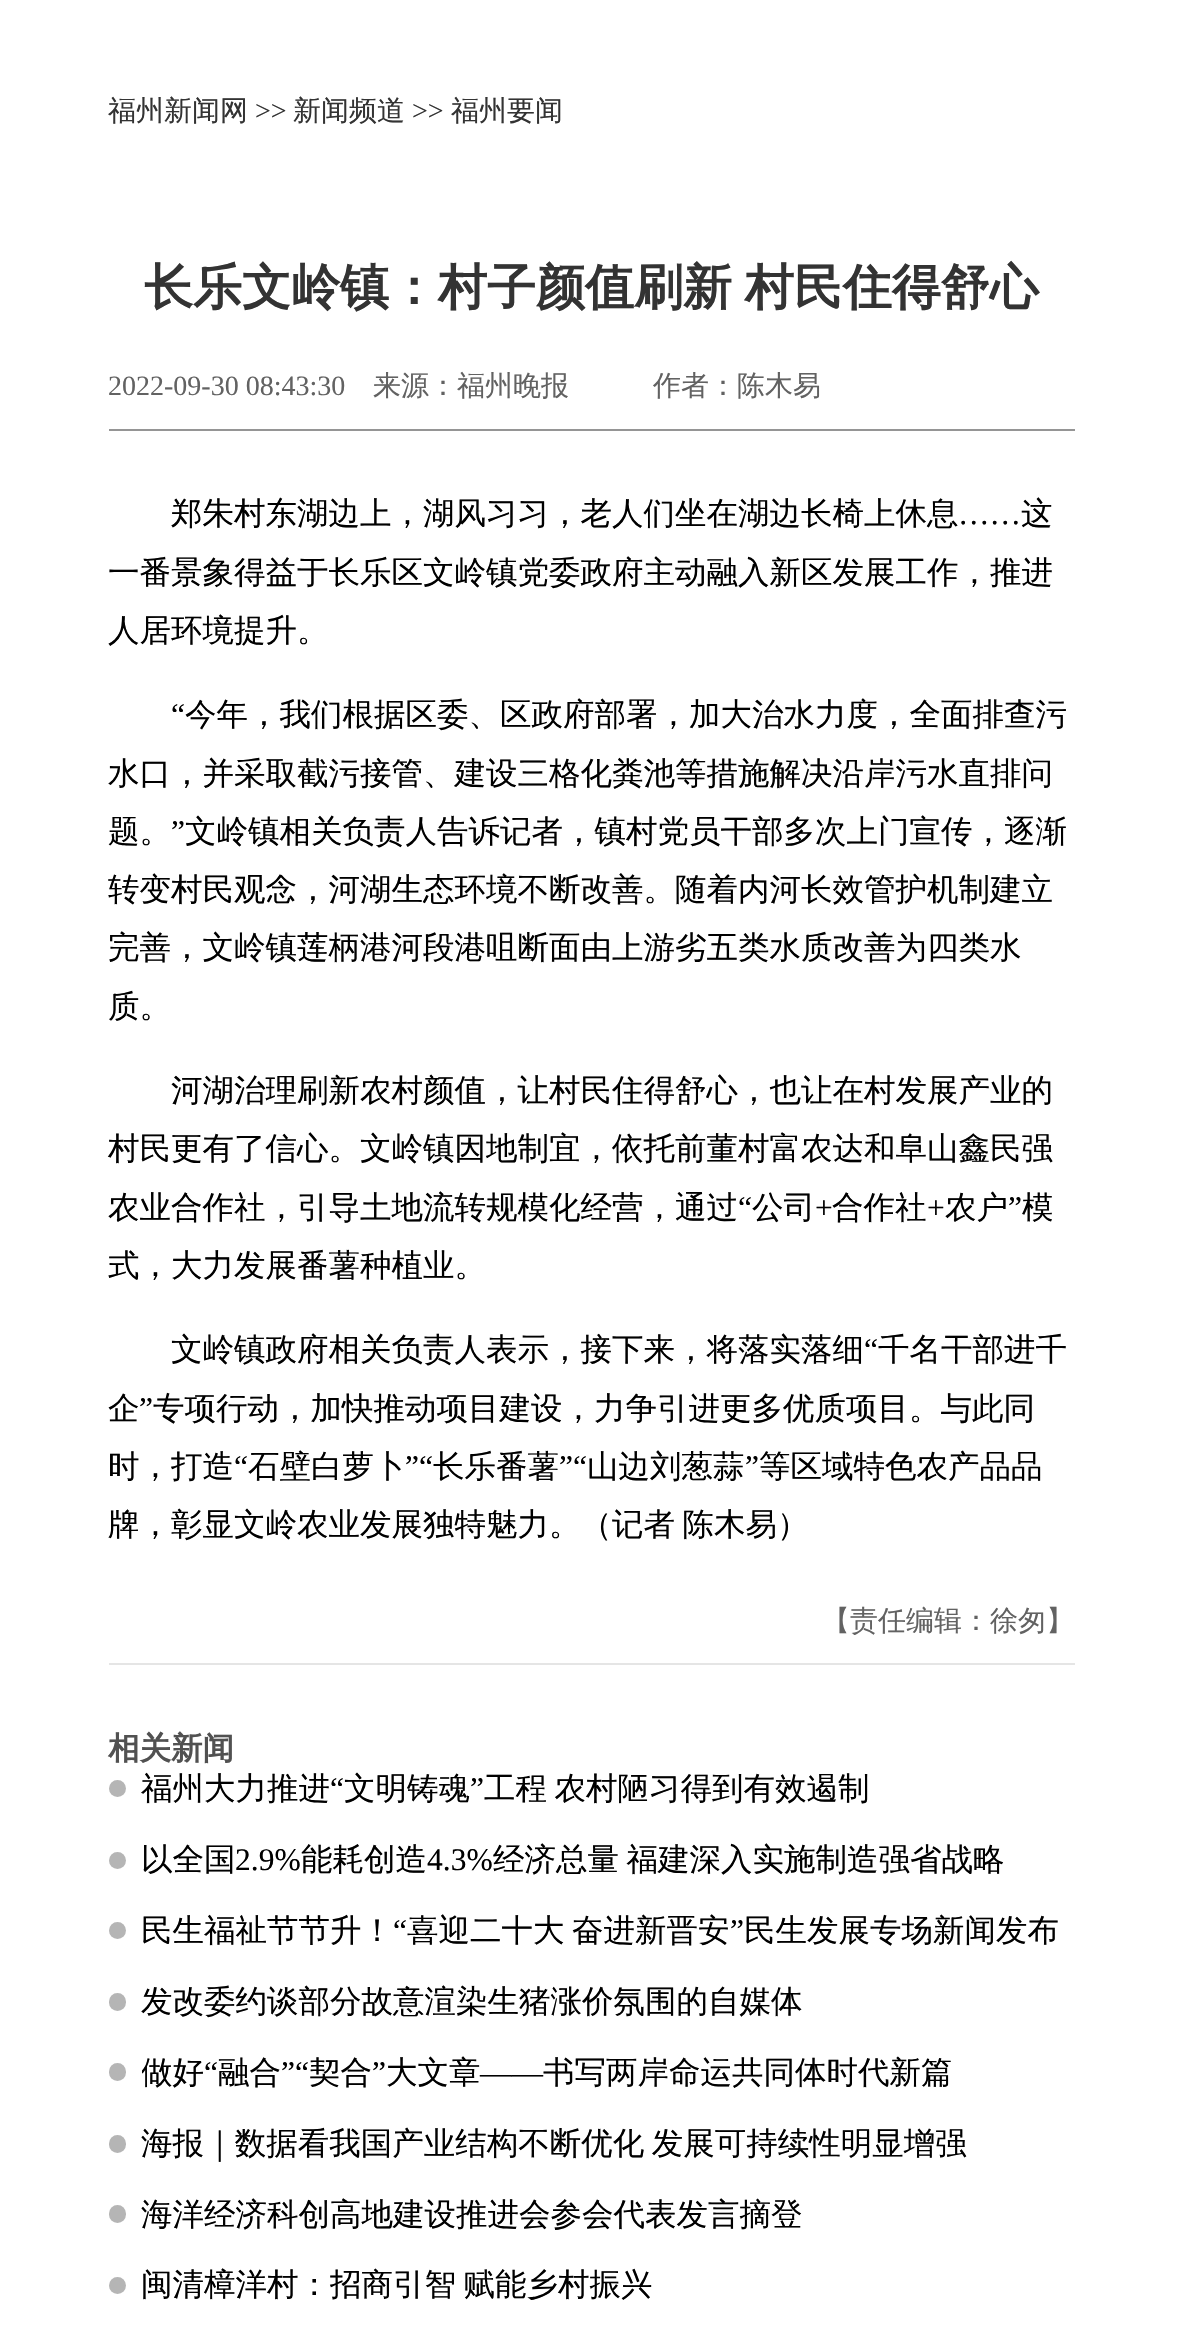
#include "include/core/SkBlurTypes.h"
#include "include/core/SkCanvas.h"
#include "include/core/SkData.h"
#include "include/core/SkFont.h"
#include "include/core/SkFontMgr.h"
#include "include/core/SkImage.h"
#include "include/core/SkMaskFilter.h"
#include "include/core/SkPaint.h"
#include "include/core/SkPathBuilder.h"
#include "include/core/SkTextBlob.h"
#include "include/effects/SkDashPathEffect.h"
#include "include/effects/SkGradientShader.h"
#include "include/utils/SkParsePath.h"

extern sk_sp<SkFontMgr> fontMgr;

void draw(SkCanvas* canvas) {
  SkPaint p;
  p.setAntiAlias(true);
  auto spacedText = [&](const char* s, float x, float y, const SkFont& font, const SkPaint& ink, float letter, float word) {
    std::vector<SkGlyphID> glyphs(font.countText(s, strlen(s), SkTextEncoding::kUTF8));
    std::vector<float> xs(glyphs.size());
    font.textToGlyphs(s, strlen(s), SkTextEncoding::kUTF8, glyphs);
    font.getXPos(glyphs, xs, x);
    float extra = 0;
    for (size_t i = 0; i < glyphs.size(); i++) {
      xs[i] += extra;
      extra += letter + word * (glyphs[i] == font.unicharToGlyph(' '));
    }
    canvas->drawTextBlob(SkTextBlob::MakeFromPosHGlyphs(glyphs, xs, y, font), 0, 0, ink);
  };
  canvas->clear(SK_ColorWHITE);
  p.setColor(SkColorSetRGB(149, 149, 149));
  canvas->drawRect(SkRect::MakeLTRB(109, 429, 1075, 431), p);
  p.setColor(SkColorSetRGB(229, 229, 229));
  canvas->drawRect(SkRect::MakeLTRB(109, 1663, 1075, 1665), p);
  p.setColor(SkColorSetRGB(181, 181, 181));
  canvas->drawCircle(117.5f, 1788.5f, 8.5f, p);
  canvas->drawCircle(117.5f, 1860.5f, 8.5f, p);
  canvas->drawCircle(117.5f, 1930.5f, 8.5f, p);
  canvas->drawRoundRect(SkRect::MakeLTRB(109, 1993, 126, 2011), 8.5f, 8.5f, p);
  canvas->drawRoundRect(SkRect::MakeLTRB(109, 2063, 126, 2081), 8.5f, 8.5f, p);
  canvas->drawRoundRect(SkRect::MakeLTRB(109, 2135, 126, 2153), 8.5f, 8.5f, p);
  canvas->drawRoundRect(SkRect::MakeLTRB(109, 2205, 126, 2223), 8.5f, 8.5f, p);
  canvas->drawCircle(117.5f, 2285.5f, 8.5f, p);
  SkFont font1(fontMgr->matchFamilyStyle("WenQuanYi Zen Hei", SkFontStyle(500, SkFontStyle::kNormal_Width, SkFontStyle::kUpright_Slant)), 28);
  font1.setSubpixel(true);
  p.setColor(SkColorSetRGB(51, 51, 51));
  canvas->drawString("福州新闻网", 108, 120, font1, p);
  SkFont font2(fontMgr->matchFamilyStyle("Liberation Serif", SkFontStyle::Normal()), 28);
  font2.setSubpixel(true);
  canvas->drawString(">>", 255, 120, font2, p);
  canvas->drawString("新闻频道", 293, 120, font1, p);
  canvas->drawString(">>", 412, 120, font2, p);
  canvas->drawString("福州要闻", 451, 120, font1, p);
  SkFont font3(fontMgr->matchFamilyStyle("WenQuanYi Zen Hei", SkFontStyle::Bold()), 49);
  font3.setSubpixel(true);
  spacedText("长乐文岭镇：村子颜值刷新 村民住得舒心", 144, 304, font3, p, 0, -2);
  p.setColor(SkColorSetRGB(98, 98, 98));
  canvas->drawString("2022-09-30 08:43:30", 108, 395, font2, p);
  canvas->drawString("来源：福州晚报", 373, 395, font1, p);
  canvas->drawString("作者：陈木易", 653, 395, font1, p);
  SkFont font4(fontMgr->matchFamilyStyle("WenQuanYi Zen Hei", SkFontStyle(500, SkFontStyle::kNormal_Width, SkFontStyle::kUpright_Slant)), 31.5f);
  font4.setSubpixel(true);
  p.setColor(SK_ColorBLACK);
  canvas->drawString("郑朱村东湖边上，湖风习习，老人们坐在湖边长椅上休息", 171, 524, font4, p);
  SkFont font5(fontMgr->matchFamilyStyle("Liberation Serif", SkFontStyle::Normal()), 31.5f);
  font5.setSubpixel(true);
  canvas->drawString("……", 958, 524, font5, p);
  canvas->drawString("这", 1021, 524, font4, p);
  canvas->drawString("一番景象得益于长乐区文岭镇党委政府主动融入新区发展工作，推进", 108, 583, font4, p);
  canvas->drawString("人居环境提升。", 108, 641, font4, p);
  canvas->drawString("“", 171, 725, font5, p);
  canvas->drawString("今年，我们根据区委、区政府部署，加大治水力度，全面排查污", 185, 725, font4, p);
  canvas->drawString("水口，并采取截污接管、建设三格化粪池等措施解决沿岸污水直排问", 108, 784, font4, p);
  canvas->drawString("题。", 108, 842, font4, p);
  canvas->drawString("”", 171, 842, font5, p);
  canvas->drawString("文岭镇相关负责人告诉记者，镇村党员干部多次上门宣传，逐渐", 185, 842, font4, p);
  canvas->drawString("转变村民观念，河湖生态环境不断改善。随着内河长效管护机制建立", 108, 900, font4, p);
  canvas->drawString("完善，文岭镇莲柄港河段港咀断面由上游劣五类水质改善为四类水", 108, 958, font4, p);
  canvas->drawString("质。", 108, 1017, font4, p);
  canvas->drawString("河湖治理刷新农村颜值，让村民住得舒心，也让在村发展产业的", 171, 1101, font4, p);
  canvas->drawString("村民更有了信心。文岭镇因地制宜，依托前董村富农达和阜山鑫民强", 108, 1159, font4, p);
  canvas->drawString("农业合作社，引导土地流转规模化经营，通过", 108, 1218, font4, p);
  canvas->drawString("“", 738, 1218, font5, p);
  canvas->drawString("公司", 752, 1218, font4, p);
  canvas->drawString("+", 815, 1218, font5, p);
  canvas->drawString("合作社", 832, 1218, font4, p);
  canvas->drawString("+", 927, 1218, font5, p);
  canvas->drawString("农户", 945, 1218, font4, p);
  canvas->drawString("”", 1008, 1218, font5, p);
  canvas->drawString("模", 1022, 1218, font4, p);
  canvas->drawString("式，大力发展番薯种植业。", 108, 1276, font4, p);
  canvas->drawString("文岭镇政府相关负责人表示，接下来，将落实落细", 171, 1360, font4, p);
  canvas->drawString("“", 864, 1360, font5, p);
  canvas->drawString("千名干部进千", 878, 1360, font4, p);
  canvas->drawString("企", 108, 1419, font4, p);
  canvas->drawString("”", 139, 1419, font5, p);
  canvas->drawString("专项行动，加快推动项目建设，力争引进更多优质项目。与此同", 153, 1419, font4, p);
  canvas->drawString("时，打造", 108, 1477, font4, p);
  canvas->drawString("“", 234, 1477, font5, p);
  canvas->drawString("石壁白萝卜", 248, 1477, font4, p);
  canvas->drawString("”“", 405, 1477, font5, p);
  canvas->drawString("长乐番薯", 433, 1477, font4, p);
  canvas->drawString("”“", 559, 1477, font5, p);
  canvas->drawString("山边刘葱蒜", 587, 1477, font4, p);
  canvas->drawString("”", 745, 1477, font5, p);
  canvas->drawString("等区域特色农产品品", 759, 1477, font4, p);
  canvas->drawString("牌，彰显文岭农业发展独特魅力。（", 108, 1535, font4, p);
  spacedText("记者 陈木易", 612, 1535, font4, p, 0, -2);
  canvas->drawString("）", 777, 1535, font4, p);
  p.setColor(SkColorSetRGB(98, 98, 98));
  canvas->drawString("【责任编辑：徐匆】", 822, 1630, font1, p);
  SkFont font6(fontMgr->matchFamilyStyle("WenQuanYi Zen Hei", SkFontStyle::Bold()), 31.5f);
  font6.setSubpixel(true);
  p.setColor(SkColorSetRGB(81, 81, 81));
  canvas->drawString("相关新闻", 108, 1759, font6, p);
  p.setColor(SK_ColorBLACK);
  canvas->drawString("福州大力推进", 141, 1799, font4, p);
  canvas->drawString("“", 330, 1799, font5, p);
  canvas->drawString("文明铸魂", 344, 1799, font4, p);
  canvas->drawString("”", 470, 1799, font5, p);
  spacedText("工程 农村陋习得到有效遏制", 484, 1799, font4, p, 0, -2);
  canvas->drawString("以全国", 141, 1870, font4, p);
  canvas->drawString("2.9%", 235, 1870, font5, p);
  canvas->drawString("能耗创造", 301, 1870, font4, p);
  canvas->drawString("4.3%", 427, 1870, font5, p);
  spacedText("经济总量 福建深入实施制造强省战略", 493, 1870, font4, p, 0, -2);
  canvas->drawString("民生福祉节节升！", 141, 1941, font4, p);
  canvas->drawString("“", 393, 1941, font5, p);
  spacedText("喜迎二十大 奋进新晋安", 407, 1941, font4, p, 0, -2);
  canvas->drawString("”", 730, 1941, font5, p);
  canvas->drawString("民生发展专场新闻发布", 744, 1941, font4, p);
  canvas->drawString("发改委约谈部分故意渲染生猪涨价氛围的自媒体", 141, 2012, font4, p);
  canvas->save();
  canvas->clipRect(SkRect::MakeLTRB(142, 2053, 952, 2093));
  canvas->drawString("做好", 141, 2083, font4, p);
  canvas->restore();
  canvas->drawString("“", 204, 2083, font5, p);
  canvas->drawString("融合", 218, 2083, font4, p);
  canvas->drawString("”“", 281, 2083, font5, p);
  canvas->drawString("契合", 309, 2083, font4, p);
  canvas->drawString("”", 372, 2083, font5, p);
  canvas->drawString("大文章", 386, 2083, font4, p);
  canvas->drawString("——", 480, 2083, font5, p);
  canvas->drawString("书写两岸命运共同体时代新篇", 543, 2083, font4, p);
  spacedText("海报｜数据看我国产业结构不断优化 发展可持续性明显增强", 141, 2154, font4, p, 0, -2);
  canvas->drawString("海洋经济科创高地建设推进会参会代表发言摘登", 141, 2225, font4, p);
  spacedText("闽清樟洋村：招商引智 赋能乡村振兴", 141, 2295, font4, p, 0, -2);
}
